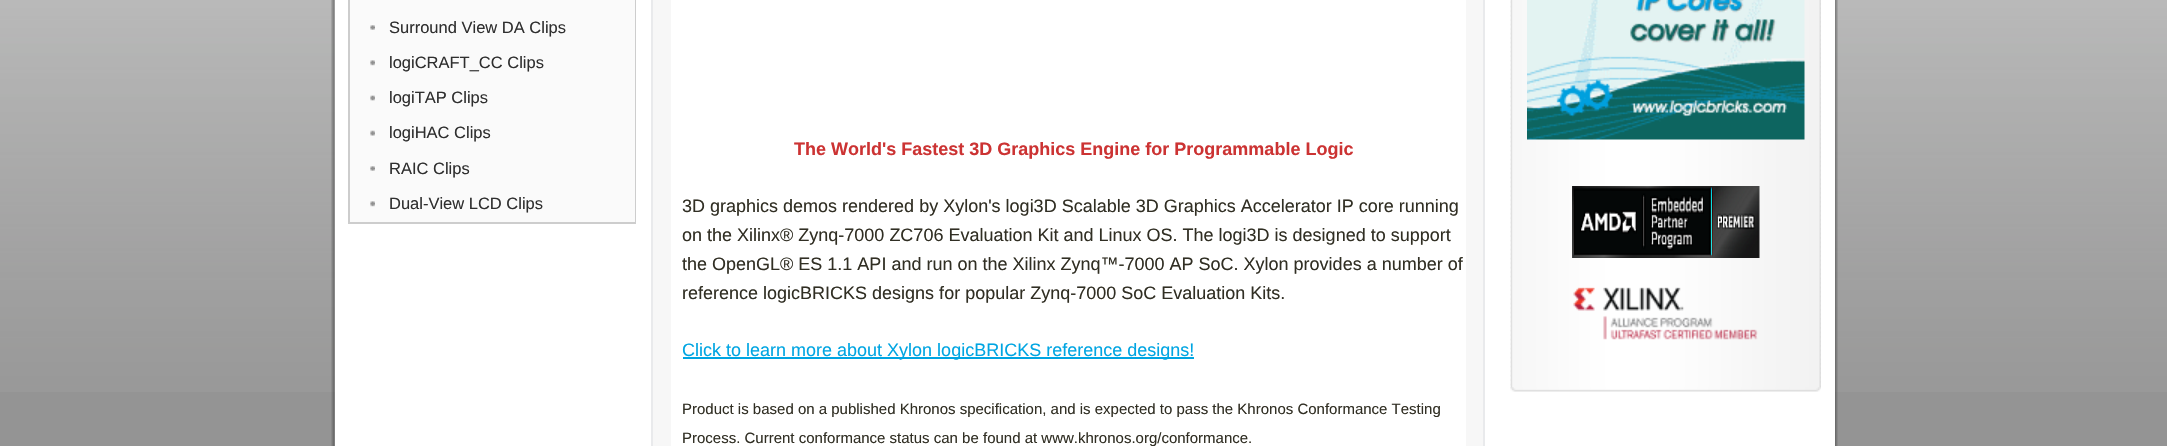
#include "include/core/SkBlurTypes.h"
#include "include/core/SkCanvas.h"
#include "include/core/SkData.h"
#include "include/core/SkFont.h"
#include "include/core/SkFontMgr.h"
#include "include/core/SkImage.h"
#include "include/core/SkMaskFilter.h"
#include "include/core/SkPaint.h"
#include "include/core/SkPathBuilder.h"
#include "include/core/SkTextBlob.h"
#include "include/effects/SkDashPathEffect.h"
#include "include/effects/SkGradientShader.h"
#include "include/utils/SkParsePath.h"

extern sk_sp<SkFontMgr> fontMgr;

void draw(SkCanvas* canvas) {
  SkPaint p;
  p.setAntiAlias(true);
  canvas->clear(SkColorSetRGB(148, 148, 148));
  canvas->drawImageRect(SkImages::DeferredFromEncodedData(SkData::MakeFromFileName("images/1.png")), SkRect::MakeLTRB(0, 0, 2167, 392), SkSamplingOptions());
  canvas->drawImageRect(SkImages::DeferredFromEncodedData(SkData::MakeFromFileName("images/2.png")), SkRect::MakeLTRB(331, 0, 1838, 446), SkSamplingOptions());
  p.setColor(SK_ColorWHITE);
  canvas->drawRect(SkRect::MakeLTRB(335, 0, 1835, 446), p);
  p.setStyle(SkPaint::kStroke_Style);
  p.setStrokeWidth(2);
  p.setColor(SkColorSetRGB(205, 205, 205));
  canvas->drawRect(SkRect::MakeLTRB(349, -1, 635, 223), p);
  p.setStyle(SkPaint::kFill_Style);
  p.setColor(SkColorSetRGB(250, 250, 250));
  canvas->drawRect(SkRect::MakeLTRB(350, 0, 635, 222), p);
  canvas->drawImageRect(SkImages::DeferredFromEncodedData(SkData::MakeFromFileName("images/3.png")), SkRect::MakeLTRB(370, 25, 375, 30), SkSamplingOptions());
  canvas->drawImageRect(SkImages::DeferredFromEncodedData(SkData::MakeFromFileName("images/4.png")), SkRect::MakeLTRB(370, 60, 375, 66), SkSamplingOptions());
  canvas->drawImageRect(SkImages::DeferredFromEncodedData(SkData::MakeFromFileName("images/5.png")), SkRect::MakeLTRB(370, 95, 375, 101), SkSamplingOptions());
  canvas->drawImageRect(SkImages::DeferredFromEncodedData(SkData::MakeFromFileName("images/6.png")), SkRect::MakeLTRB(370, 130, 375, 136), SkSamplingOptions());
  canvas->drawImageRect(SkImages::DeferredFromEncodedData(SkData::MakeFromFileName("images/3.png")), SkRect::MakeLTRB(370, 166, 375, 171), SkSamplingOptions());
  canvas->drawImageRect(SkImages::DeferredFromEncodedData(SkData::MakeFromFileName("images/4.png")), SkRect::MakeLTRB(370, 201, 375, 207), SkSamplingOptions());
  p.setColor(SkColorSetRGB(247, 247, 247));
  canvas->drawRect(SkRect::MakeLTRB(652, -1, 1484, 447), p);
  p.setStyle(SkPaint::kStroke_Style);
  p.setColor(SkColorSetRGB(233, 234, 236));
  canvas->drawRect(SkRect::MakeLTRB(652, -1, 1484, 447), p);
  p.setStyle(SkPaint::kFill_Style);
  p.setColor(SK_ColorWHITE);
  canvas->drawRect(SkRect::MakeLTRB(671, 0, 1466, 446), p);
  p.setColor(SkColorSetRGB(0, 165, 226));
  canvas->drawRect(SkRect::MakeLTRB(683, 357, 1194, 359), p);
  canvas->drawImageRect(SkImages::DeferredFromEncodedData(SkData::MakeFromFileName("images/7.png")), SkRect::MakeLTRB(1510, 0, 1821, 387), SkSamplingOptions());
  canvas->drawImageRect(SkImages::DeferredFromEncodedData(SkData::MakeFromFileName("images/8.png")), SkRect::MakeLTRB(1527, 0, 1805, 140), SkSamplingOptions());
  canvas->drawImageRect(SkImages::DeferredFromEncodedData(SkData::MakeFromFileName("images/9.png")), SkRect::MakeLTRB(1572, 186, 1760, 258), SkSamplingOptions());
  canvas->drawImageRect(SkImages::DeferredFromEncodedData(SkData::MakeFromFileName("images/10.png")), SkRect::MakeLTRB(1573, 287, 1758, 340), SkSamplingOptions());
  canvas->drawImageRect(SkImages::DeferredFromEncodedData(SkData::MakeFromFileName("images/11.png")), SkRect::MakeLTRB(1510, 387, 1821, 392), SkSamplingOptions());
  SkFont font1(fontMgr->matchFamilyStyle("Liberation Sans", SkFontStyle::Normal()), 16.5f);
  font1.setSubpixel(true);
  p.setColor(SkColorSetRGB(47, 47, 47));
  canvas->drawString("Surround View DA Clips", 389, 33, font1, p);
  canvas->drawString("logiCRAFT_CC Clips", 389, 68, font1, p);
  canvas->drawString("logiTAP Clips", 389, 103, font1, p);
  canvas->drawString("logiHAC Clips", 389, 138, font1, p);
  canvas->drawString("RAIC Clips", 389, 174, font1, p);
  canvas->drawString("Dual-View LCD Clips", 389, 209, font1, p);
  SkFont font2(fontMgr->matchFamilyStyle("Liberation Sans", SkFontStyle::Bold()), 18);
  font2.setSubpixel(true);
  p.setColor(SkColorSetRGB(204, 51, 51));
  canvas->drawString("The World's Fastest 3D Graphics Engine for Programmable Logic", 794, 155, font2, p);
  SkFont font3(fontMgr->matchFamilyStyle("Liberation Sans", SkFontStyle::Normal()), 18);
  font3.setSubpixel(true);
  p.setColor(SkColorSetRGB(49, 47, 36));
  canvas->drawString("3D graphics demos rendered by Xylon's logi3D Scalable 3D Graphics Accelerator IP core running", 682, 212, font3, p);
  canvas->drawString("on the Xilinx® Zynq-7000 ZC706 Evaluation Kit and Linux OS. The logi3D is designed to support", 682, 241, font3, p);
  canvas->drawString("the OpenGL® ES 1.1 API and run on the Xilinx Zynq™-7000 AP SoC. Xylon provides a number of", 682, 270, font3, p);
  canvas->drawString("reference logicBRICKS designs for popular Zynq-7000 SoC Evaluation Kits.", 682, 299, font3, p);
  p.setColor(SkColorSetRGB(0, 165, 226));
  canvas->drawString("Click to learn more about Xylon logicBRICKS reference designs!", 682, 356, font3, p);
  SkFont font4(fontMgr->matchFamilyStyle("Liberation Sans", SkFontStyle::Normal()), 15);
  font4.setSubpixel(true);
  p.setColor(SkColorSetRGB(49, 47, 36));
  canvas->drawString("Product is based on a published Khronos specification, and is expected to pass the Khronos Conformance Testing", 682, 414, font4, p);
  canvas->drawString("Process. Current conformance status can be found at www.khronos.org/conformance.", 682, 443, font4, p);
}
